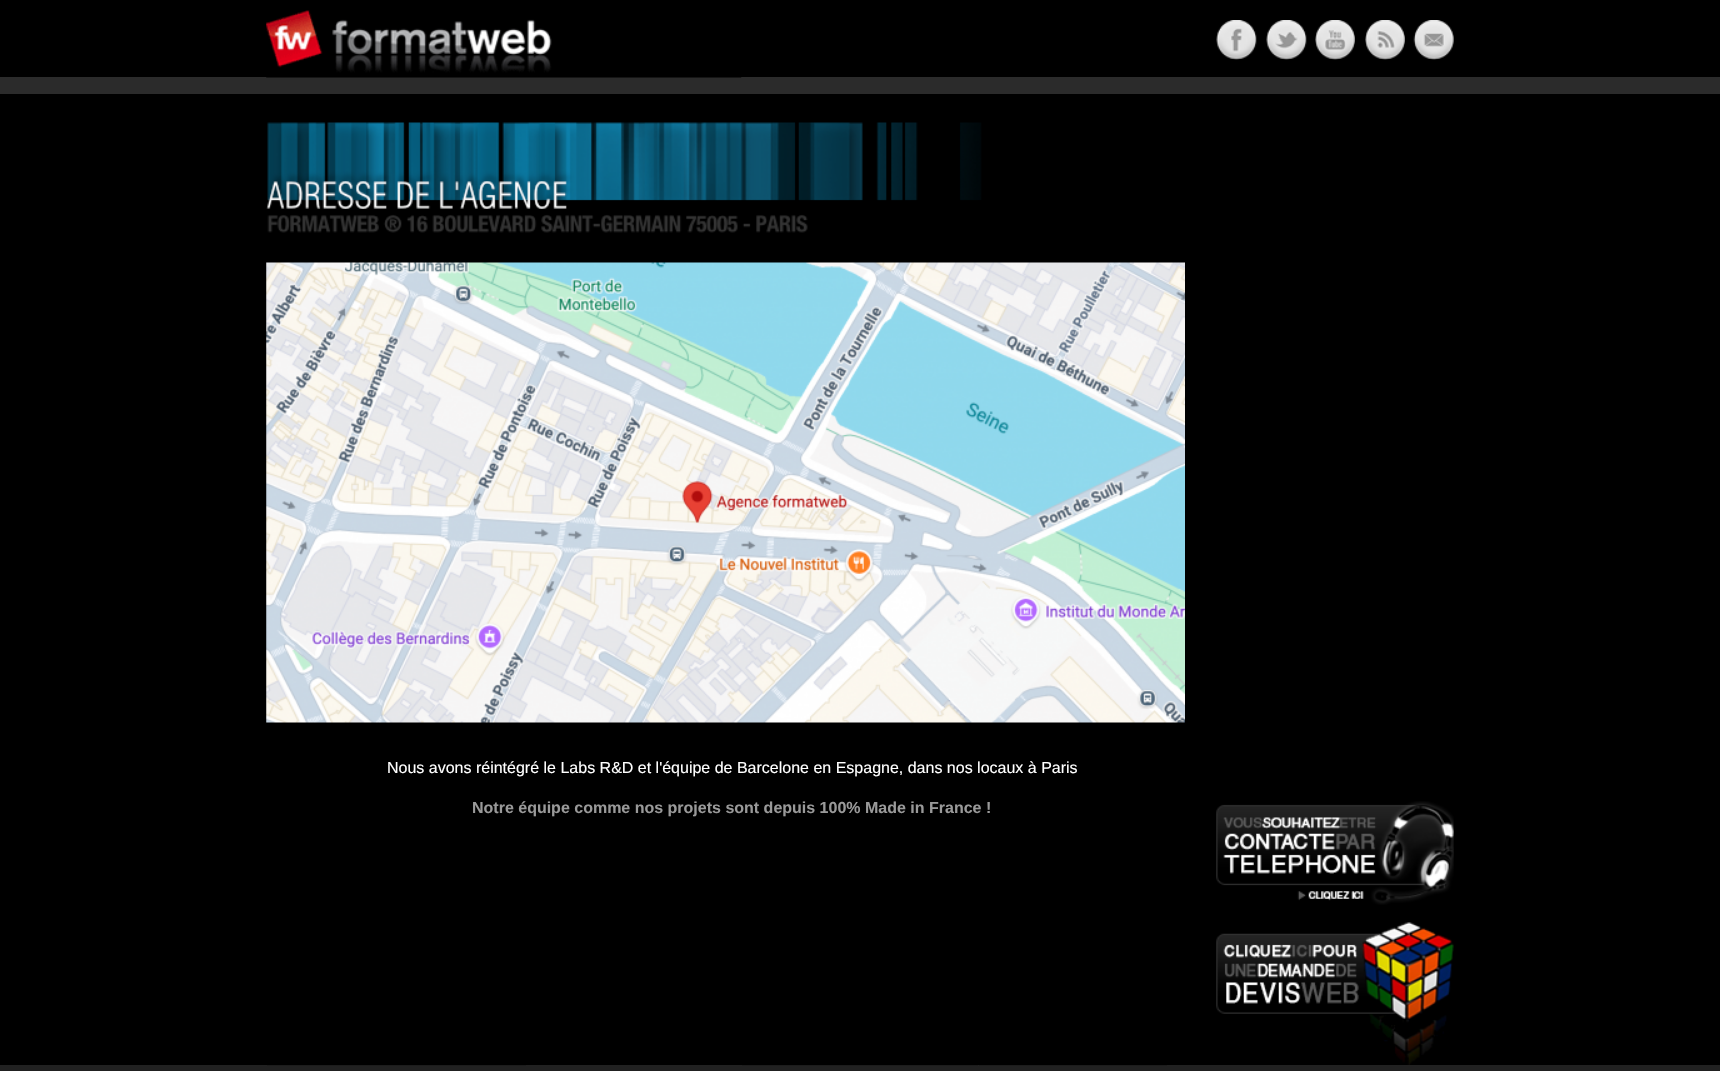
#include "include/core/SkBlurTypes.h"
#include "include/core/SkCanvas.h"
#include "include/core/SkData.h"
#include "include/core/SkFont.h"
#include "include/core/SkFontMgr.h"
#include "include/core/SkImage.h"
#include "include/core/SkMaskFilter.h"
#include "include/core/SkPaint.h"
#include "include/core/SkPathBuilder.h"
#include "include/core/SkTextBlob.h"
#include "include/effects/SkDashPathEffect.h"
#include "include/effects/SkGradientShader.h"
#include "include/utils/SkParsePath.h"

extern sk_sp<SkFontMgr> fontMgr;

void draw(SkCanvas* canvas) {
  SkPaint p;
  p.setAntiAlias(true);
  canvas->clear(SK_ColorBLACK);
  p.setColor(SkColorSetRGB(43, 43, 43));
  canvas->drawRect(SkRect::MakeLTRB(0, 77, 1720, 94), p);
  canvas->drawImageRect(SkImages::DeferredFromEncodedData(SkData::MakeFromFileName("images/1.png")), SkRect::MakeLTRB(266, 10, 742, 78), SkSamplingOptions());
  canvas->drawImageRect(SkImages::DeferredFromEncodedData(SkData::MakeFromFileName("images/2.png")), SkRect::MakeLTRB(1216, 20, 1257, 60), SkSamplingOptions());
  canvas->drawImageRect(SkImages::DeferredFromEncodedData(SkData::MakeFromFileName("images/3.png")), SkRect::MakeLTRB(1266, 20, 1307, 60), SkSamplingOptions());
  canvas->drawImageRect(SkImages::DeferredFromEncodedData(SkData::MakeFromFileName("images/4.png")), SkRect::MakeLTRB(1315, 20, 1355, 60), SkSamplingOptions());
  canvas->drawImageRect(SkImages::DeferredFromEncodedData(SkData::MakeFromFileName("images/5.png")), SkRect::MakeLTRB(1365, 20, 1405, 60), SkSamplingOptions());
  canvas->drawImageRect(SkImages::DeferredFromEncodedData(SkData::MakeFromFileName("images/6.png")), SkRect::MakeLTRB(1413, 20, 1454, 60), SkSamplingOptions());
  canvas->drawImageRect(SkImages::DeferredFromEncodedData(SkData::MakeFromFileName("images/7.png")), SkRect::MakeLTRB(266, 122, 982, 233), SkSamplingOptions());
  canvas->drawImageRect(SkImages::DeferredFromEncodedData(SkData::MakeFromFileName("images/8.png")), SkRect::MakeLTRB(266, 262, 1185, 723), SkSamplingOptions());
  canvas->drawImageRect(SkImages::DeferredFromEncodedData(SkData::MakeFromFileName("images/9.png")), SkRect::MakeLTRB(1216, 801, 1454, 905), SkSamplingOptions());
  canvas->drawImageRect(SkImages::DeferredFromEncodedData(SkData::MakeFromFileName("images/10.png")), SkRect::MakeLTRB(1216, 922, 1454, 1065), SkSamplingOptions());
  p.setColor(SkColorSetRGB(33, 33, 33));
  canvas->drawRect(SkRect::MakeLTRB(0, 1065, 1720, 1071), p);
  p.setColor(SkColorSetRGB(28, 28, 28));
  canvas->drawRect(SkRect::MakeLTRB(267, 1065, 526, 1066), p);
  canvas->drawRect(SkRect::MakeLTRB(742, 1065, 978, 1066), p);
  canvas->drawRect(SkRect::MakeLTRB(979, 1065, 1167, 1066), p);
  SkFont font1(fontMgr->matchFamilyStyle("Liberation Sans", SkFontStyle::Normal()), 16);
  font1.setSubpixel(true);
  p.setColor(SK_ColorWHITE);
  canvas->drawString("Nous avons réintégré le Labs R&D et l'équipe de Barcelone en Espagne, dans nos locaux à Paris", 387, 773, font1, p);
  SkFont font2(fontMgr->matchFamilyStyle("Liberation Sans", SkFontStyle::Bold()), 16);
  font2.setSubpixel(true);
  p.setColor(SkColorSetRGB(153, 153, 153));
  canvas->drawString("Notre équipe comme nos projets sont depuis 100% Made in France !", 472, 813, font2, p);
}
